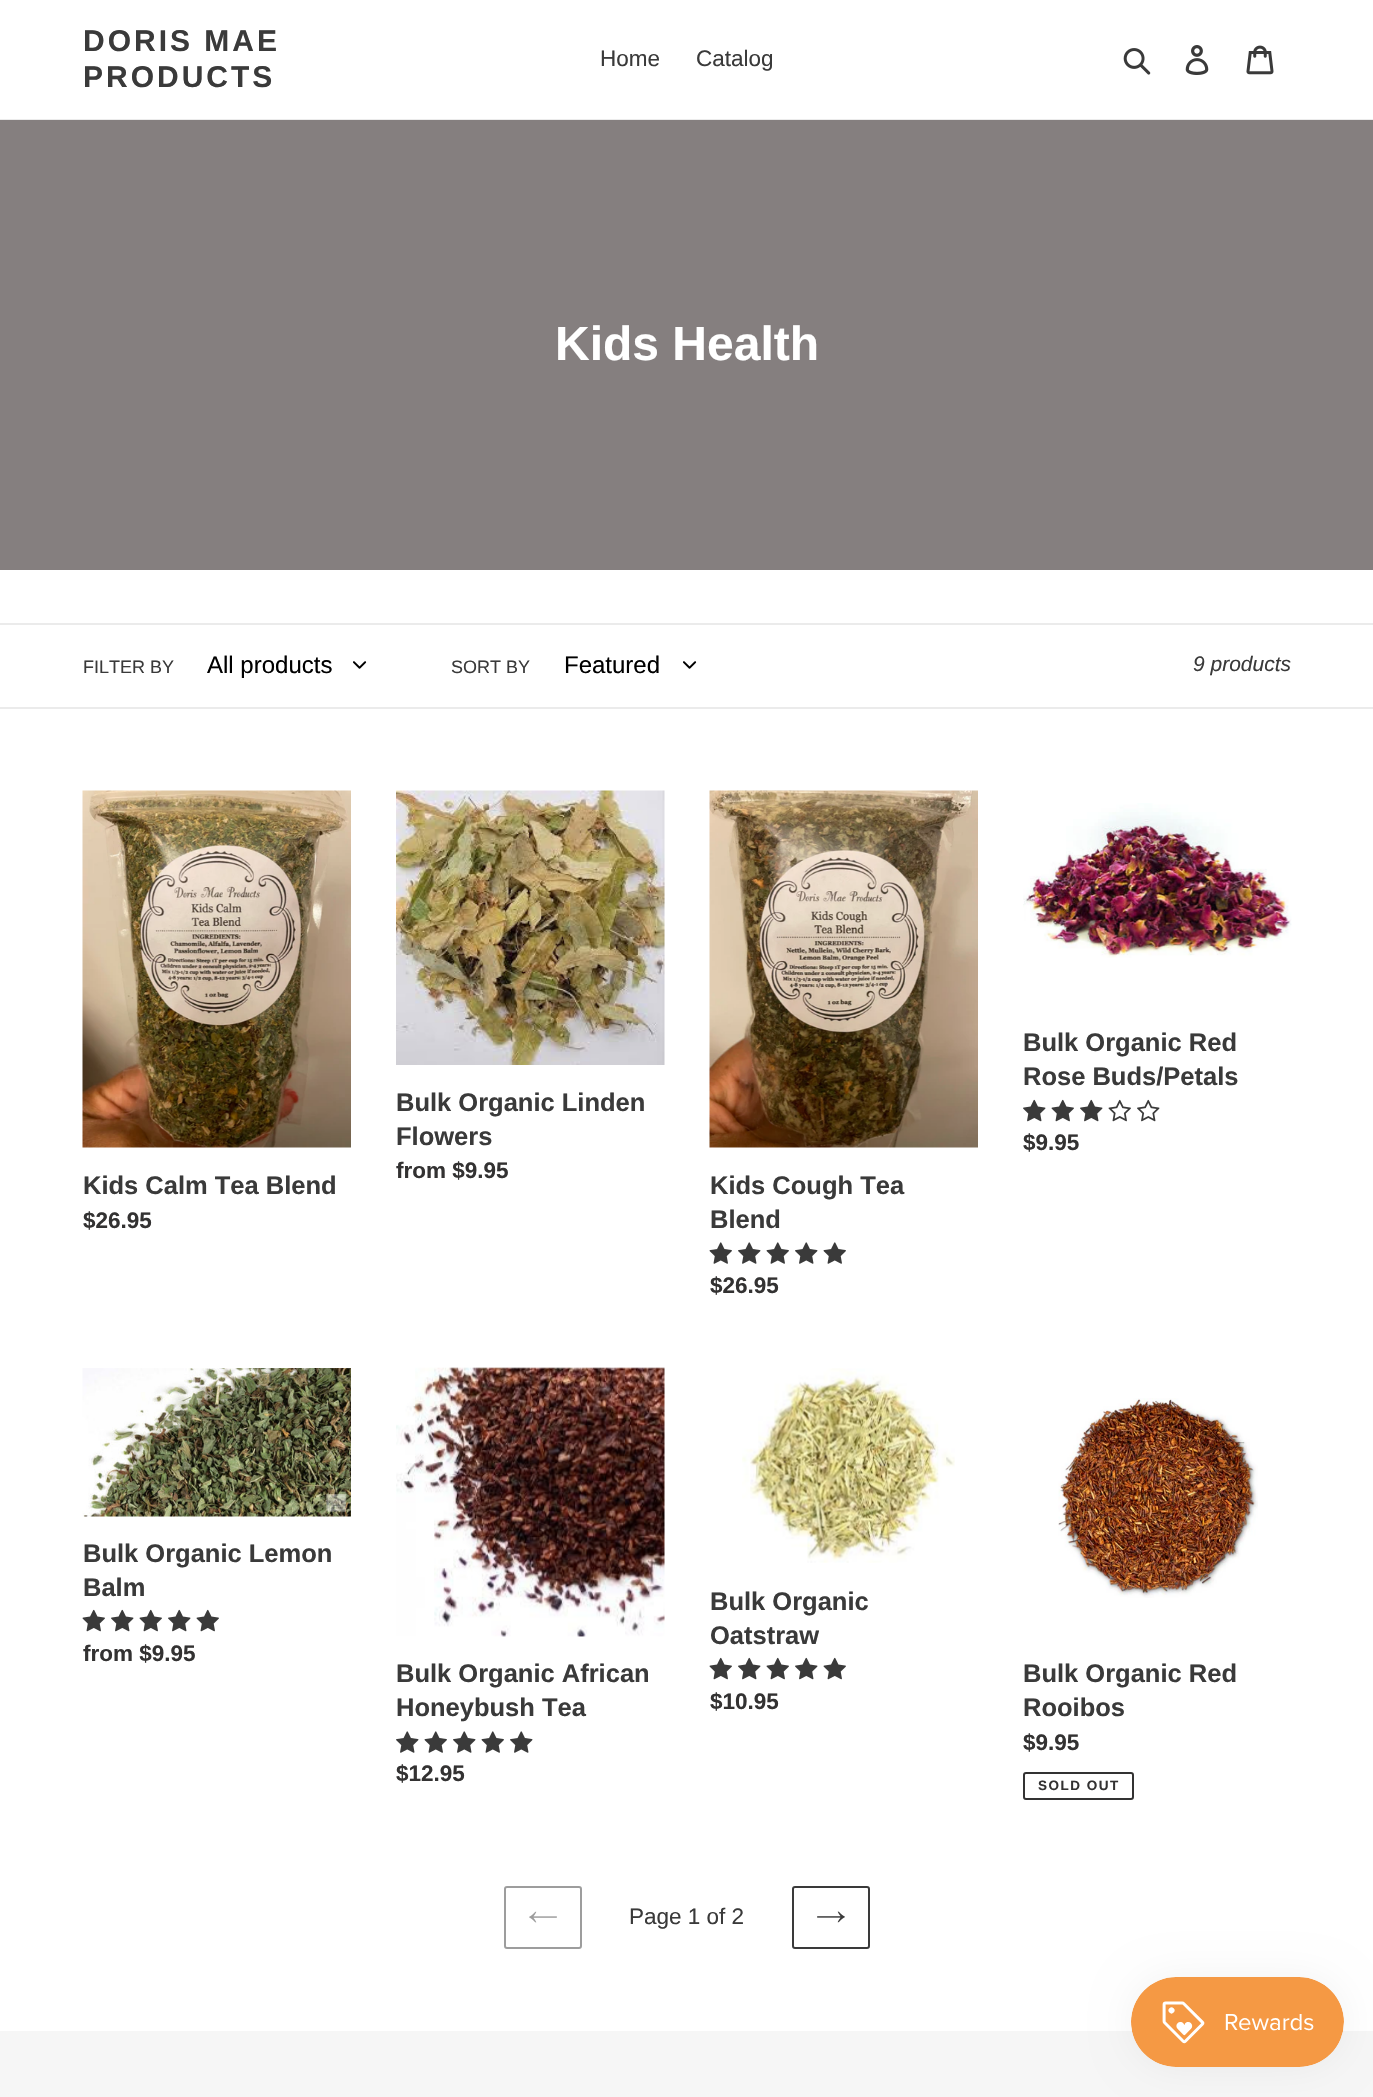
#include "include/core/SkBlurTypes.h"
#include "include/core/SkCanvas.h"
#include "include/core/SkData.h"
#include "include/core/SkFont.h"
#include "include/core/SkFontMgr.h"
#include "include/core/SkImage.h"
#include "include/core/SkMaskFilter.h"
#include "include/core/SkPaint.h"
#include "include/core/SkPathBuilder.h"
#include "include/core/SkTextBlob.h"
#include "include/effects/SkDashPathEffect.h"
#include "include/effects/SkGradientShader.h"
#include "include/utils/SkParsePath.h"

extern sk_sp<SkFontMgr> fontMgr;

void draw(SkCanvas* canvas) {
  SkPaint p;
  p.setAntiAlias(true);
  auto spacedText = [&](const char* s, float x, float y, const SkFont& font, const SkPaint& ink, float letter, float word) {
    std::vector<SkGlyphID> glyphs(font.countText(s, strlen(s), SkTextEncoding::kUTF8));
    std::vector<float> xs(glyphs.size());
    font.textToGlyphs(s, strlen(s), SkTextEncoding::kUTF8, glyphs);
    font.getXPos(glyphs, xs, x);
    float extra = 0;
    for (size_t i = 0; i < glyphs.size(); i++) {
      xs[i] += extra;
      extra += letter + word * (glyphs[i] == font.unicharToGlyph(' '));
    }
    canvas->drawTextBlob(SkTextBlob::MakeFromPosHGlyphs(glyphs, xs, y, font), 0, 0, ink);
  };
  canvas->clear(SK_ColorWHITE);
  p.setColor(SkColorSetRGB(235, 235, 235));
  canvas->drawRect(SkRect::MakeLTRB(0, 119, 1373, 120), p);
  canvas->drawImageRect(SkImages::DeferredFromEncodedData(SkData::MakeFromFileName("images/1.png")), SkRect::MakeLTRB(1123, 48, 1151, 75), SkSamplingOptions());
  canvas->drawImageRect(SkImages::DeferredFromEncodedData(SkData::MakeFromFileName("images/2.png")), SkRect::MakeLTRB(1185, 45, 1209, 75), SkSamplingOptions());
  canvas->drawImageRect(SkImages::DeferredFromEncodedData(SkData::MakeFromFileName("images/3.png")), SkRect::MakeLTRB(1246, 45, 1274, 75), SkSamplingOptions());
  p.setColor(SkColorSetRGB(133, 127, 127));
  canvas->drawRect(SkRect::MakeLTRB(0, 120, 1373, 570), p);
  p.setColor(SkColorSetRGB(235, 235, 235));
  canvas->drawRect(SkRect::MakeLTRB(0, 623, 1373, 625), p);
  canvas->drawRect(SkRect::MakeLTRB(0, 707, 1373, 709), p);
  canvas->drawImageRect(SkImages::DeferredFromEncodedData(SkData::MakeFromFileName("images/4.png")), SkRect::MakeLTRB(353, 661, 367, 669), SkSamplingOptions());
  canvas->drawImageRect(SkImages::DeferredFromEncodedData(SkData::MakeFromFileName("images/4.png")), SkRect::MakeLTRB(683, 661, 697, 669), SkSamplingOptions());
  canvas->drawImageRect(SkImages::DeferredFromEncodedData(SkData::MakeFromFileName("images/5.png")), SkRect::MakeLTRB(396, 790, 665, 1065), SkSamplingOptions());
  canvas->drawImageRect(SkImages::DeferredFromEncodedData(SkData::MakeFromFileName("images/6.png")), SkRect::MakeLTRB(1023, 803, 1292, 958), SkSamplingOptions());
  canvas->drawImageRect(SkImages::DeferredFromEncodedData(SkData::MakeFromFileName("images/7.png")), SkRect::MakeLTRB(1023, 1099, 1046, 1122), SkSamplingOptions());
  canvas->drawImageRect(SkImages::DeferredFromEncodedData(SkData::MakeFromFileName("images/8.png")), SkRect::MakeLTRB(1051, 1099, 1074, 1122), SkSamplingOptions());
  canvas->drawImageRect(SkImages::DeferredFromEncodedData(SkData::MakeFromFileName("images/7.png")), SkRect::MakeLTRB(1080, 1099, 1103, 1122), SkSamplingOptions());
  canvas->drawImageRect(SkImages::DeferredFromEncodedData(SkData::MakeFromFileName("images/9.png")), SkRect::MakeLTRB(1108, 1099, 1131, 1122), SkSamplingOptions());
  canvas->drawImageRect(SkImages::DeferredFromEncodedData(SkData::MakeFromFileName("images/10.png")), SkRect::MakeLTRB(1137, 1099, 1160, 1122), SkSamplingOptions());
  canvas->drawImageRect(SkImages::DeferredFromEncodedData(SkData::MakeFromFileName("images/11.png")), SkRect::MakeLTRB(82, 790, 351, 1148), SkSamplingOptions());
  canvas->drawImageRect(SkImages::DeferredFromEncodedData(SkData::MakeFromFileName("images/12.png")), SkRect::MakeLTRB(709, 790, 978, 1148), SkSamplingOptions());
  canvas->drawImageRect(SkImages::DeferredFromEncodedData(SkData::MakeFromFileName("images/13.png")), SkRect::MakeLTRB(709, 1242, 732, 1264), SkSamplingOptions());
  canvas->drawImageRect(SkImages::DeferredFromEncodedData(SkData::MakeFromFileName("images/14.png")), SkRect::MakeLTRB(738, 1242, 761, 1264), SkSamplingOptions());
  canvas->drawImageRect(SkImages::DeferredFromEncodedData(SkData::MakeFromFileName("images/13.png")), SkRect::MakeLTRB(766, 1242, 789, 1264), SkSamplingOptions());
  canvas->drawImageRect(SkImages::DeferredFromEncodedData(SkData::MakeFromFileName("images/14.png")), SkRect::MakeLTRB(795, 1242, 818, 1264), SkSamplingOptions());
  canvas->drawImageRect(SkImages::DeferredFromEncodedData(SkData::MakeFromFileName("images/13.png")), SkRect::MakeLTRB(823, 1242, 846, 1264), SkSamplingOptions());
  canvas->drawImageRect(SkImages::DeferredFromEncodedData(SkData::MakeFromFileName("images/15.png")), SkRect::MakeLTRB(82, 1368, 351, 1517), SkSamplingOptions());
  canvas->drawImageRect(SkImages::DeferredFromEncodedData(SkData::MakeFromFileName("images/8.png")), SkRect::MakeLTRB(82, 1609, 105, 1632), SkSamplingOptions());
  canvas->drawImageRect(SkImages::DeferredFromEncodedData(SkData::MakeFromFileName("images/7.png")), SkRect::MakeLTRB(111, 1609, 134, 1632), SkSamplingOptions());
  canvas->drawImageRect(SkImages::DeferredFromEncodedData(SkData::MakeFromFileName("images/8.png")), SkRect::MakeLTRB(139, 1609, 162, 1632), SkSamplingOptions());
  canvas->drawImageRect(SkImages::DeferredFromEncodedData(SkData::MakeFromFileName("images/7.png")), SkRect::MakeLTRB(168, 1609, 191, 1632), SkSamplingOptions());
  canvas->drawImageRect(SkImages::DeferredFromEncodedData(SkData::MakeFromFileName("images/8.png")), SkRect::MakeLTRB(196, 1609, 219, 1632), SkSamplingOptions());
  canvas->drawImageRect(SkImages::DeferredFromEncodedData(SkData::MakeFromFileName("images/16.png")), SkRect::MakeLTRB(742, 1368, 955, 1563), SkSamplingOptions());
  canvas->drawImageRect(SkImages::DeferredFromEncodedData(SkData::MakeFromFileName("images/8.png")), SkRect::MakeLTRB(709, 1657, 732, 1680), SkSamplingOptions());
  canvas->drawImageRect(SkImages::DeferredFromEncodedData(SkData::MakeFromFileName("images/7.png")), SkRect::MakeLTRB(738, 1657, 761, 1680), SkSamplingOptions());
  canvas->drawImageRect(SkImages::DeferredFromEncodedData(SkData::MakeFromFileName("images/8.png")), SkRect::MakeLTRB(766, 1657, 789, 1680), SkSamplingOptions());
  canvas->drawImageRect(SkImages::DeferredFromEncodedData(SkData::MakeFromFileName("images/7.png")), SkRect::MakeLTRB(795, 1657, 818, 1680), SkSamplingOptions());
  canvas->drawImageRect(SkImages::DeferredFromEncodedData(SkData::MakeFromFileName("images/8.png")), SkRect::MakeLTRB(823, 1657, 846, 1680), SkSamplingOptions());
  canvas->drawImageRect(SkImages::DeferredFromEncodedData(SkData::MakeFromFileName("images/17.png")), SkRect::MakeLTRB(396, 1367, 665, 1637), SkSamplingOptions());
  canvas->drawImageRect(SkImages::DeferredFromEncodedData(SkData::MakeFromFileName("images/14.png")), SkRect::MakeLTRB(396, 1731, 419, 1753), SkSamplingOptions());
  canvas->drawImageRect(SkImages::DeferredFromEncodedData(SkData::MakeFromFileName("images/13.png")), SkRect::MakeLTRB(424, 1731, 447, 1753), SkSamplingOptions());
  canvas->drawImageRect(SkImages::DeferredFromEncodedData(SkData::MakeFromFileName("images/14.png")), SkRect::MakeLTRB(453, 1731, 476, 1753), SkSamplingOptions());
  canvas->drawImageRect(SkImages::DeferredFromEncodedData(SkData::MakeFromFileName("images/13.png")), SkRect::MakeLTRB(481, 1731, 504, 1753), SkSamplingOptions());
  canvas->drawImageRect(SkImages::DeferredFromEncodedData(SkData::MakeFromFileName("images/14.png")), SkRect::MakeLTRB(510, 1731, 533, 1753), SkSamplingOptions());
  canvas->drawImageRect(SkImages::DeferredFromEncodedData(SkData::MakeFromFileName("images/18.png")), SkRect::MakeLTRB(1058, 1398, 1258, 1598), SkSamplingOptions());
  p.setStyle(SkPaint::kStroke_Style);
  p.setStrokeWidth(2);
  p.setColor(SkColorSetRGB(51, 50, 50));
  canvas->drawRoundRect(SkRect::MakeLTRB(1024, 1773, 1133, 1799), 2, 2, p);
  p.setColor(SkColorSetRGB(157, 157, 157));
  canvas->drawRoundRect(SkRect::MakeLTRB(505, 1887, 581, 1948), 2, 2, p);
  canvas->drawImageRect(SkImages::DeferredFromEncodedData(SkData::MakeFromFileName("images/19.png")), SkRect::MakeLTRB(529, 1911, 557, 1923), SkSamplingOptions());
  p.setColor(SkColorSetRGB(58, 58, 58));
  canvas->drawRoundRect(SkRect::MakeLTRB(793, 1887, 869, 1948), 2, 2, p);
  canvas->drawImageRect(SkImages::DeferredFromEncodedData(SkData::MakeFromFileName("images/20.png")), SkRect::MakeLTRB(817, 1911, 845, 1923), SkSamplingOptions());
  p.setStyle(SkPaint::kFill_Style);
  p.setColor(SkColorSetRGB(246, 246, 246));
  canvas->drawRect(SkRect::MakeLTRB(0, 2031, 1373, 2097), p);
  p.setColor(SkColorSetARGB(13, 0, 0, 0));
  p.setMaskFilter(SkMaskFilter::MakeBlur(kNormal_SkBlurStyle, 19));
  canvas->drawRoundRect(SkRect::MakeLTRB(1131, 1977, 1344, 2067), 45, 45, p);
  p.setMaskFilter(nullptr);
  canvas->drawImageRect(SkImages::DeferredFromEncodedData(SkData::MakeFromFileName("images/21.png")), SkRect::MakeLTRB(1131, 1977, 1344, 2067), SkSamplingOptions());
  SkFont font1(fontMgr->matchFamilyStyle("Liberation Sans", SkFontStyle::Bold()), 30);
  font1.setSubpixel(true);
  p.setColor(SkColorSetRGB(58, 58, 58));
  spacedText("DORIS MAE", 83, 51, font1, p, 3, 0);
  spacedText("PRODUCTS", 83, 87, font1, p, 3, 0);
  SkFont font2(fontMgr->matchFamilyStyle("Liberation Sans", SkFontStyle::Normal()), 22.5f);
  font2.setSubpixel(true);
  canvas->drawString("Home", 600, 66, font2, p);
  canvas->drawString("Catalog", 696, 66, font2, p);
  SkFont font3(fontMgr->matchFamilyStyle("Liberation Sans", SkFontStyle::Bold()), 48);
  font3.setSubpixel(true);
  p.setColor(SK_ColorWHITE);
  canvas->drawString("Kids Health", 555, 360, font3, p);
  SkFont font4(fontMgr->matchFamilyStyle("Liberation Sans", SkFontStyle::Normal()), 18);
  font4.setSubpixel(true);
  p.setColor(SkColorSetRGB(58, 58, 58));
  canvas->drawString("FILTER BY", 83, 673, font4, p);
  SkFont font5(fontMgr->matchFamilyStyle("Liberation Sans", SkFontStyle::Normal()), 24);
  font5.setSubpixel(true);
  p.setColor(SK_ColorBLACK);
  canvas->drawString("All products", 207, 673, font5, p);
  p.setColor(SkColorSetRGB(58, 58, 58));
  canvas->drawString("SORT BY", 451, 673, font4, p);
  p.setColor(SK_ColorBLACK);
  canvas->drawString("Featured", 564, 673, font5, p);
  SkFont font6(fontMgr->matchFamilyStyle("Liberation Sans", SkFontStyle::Italic()), 21);
  font6.setSubpixel(true);
  p.setColor(SkColorSetRGB(58, 58, 58));
  canvas->drawString("9 products", 1193, 671, font6, p);
  SkFont font7(fontMgr->matchFamilyStyle("Liberation Sans", SkFontStyle::Bold()), 25.5f);
  font7.setSubpixel(true);
  canvas->drawString("Bulk Organic Linden", 396, 1111, font7, p);
  canvas->drawString("Flowers", 396, 1145, font7, p);
  SkFont font8(fontMgr->matchFamilyStyle("Liberation Sans", SkFontStyle::Bold()), 22.5f);
  font8.setSubpixel(true);
  p.setColor(SkColorSetRGB(51, 50, 50));
  canvas->drawString("from $9.95", 396, 1178, font8, p);
  p.setColor(SkColorSetRGB(58, 58, 58));
  canvas->drawString("Bulk Organic Red", 1023, 1051, font7, p);
  canvas->drawString("Rose Buds/Petals", 1023, 1085, font7, p);
  p.setColor(SkColorSetRGB(51, 50, 50));
  canvas->drawString("$9.95", 1023, 1150, font8, p);
  p.setColor(SkColorSetRGB(58, 58, 58));
  canvas->drawString("Kids Calm Tea Blend", 83, 1194, font7, p);
  p.setColor(SkColorSetRGB(51, 50, 50));
  canvas->drawString("$26.95", 83, 1228, font8, p);
  p.setColor(SkColorSetRGB(58, 58, 58));
  canvas->drawString("Kids Cough Tea", 710, 1194, font7, p);
  canvas->drawString("Blend", 710, 1228, font7, p);
  p.setColor(SkColorSetRGB(51, 50, 50));
  canvas->drawString("$26.95", 710, 1293, font8, p);
  p.setColor(SkColorSetRGB(58, 58, 58));
  canvas->drawString("Bulk Organic Lemon", 83, 1562, font7, p);
  canvas->drawString("Balm", 83, 1596, font7, p);
  p.setColor(SkColorSetRGB(51, 50, 50));
  canvas->drawString("from $9.95", 83, 1661, font8, p);
  p.setColor(SkColorSetRGB(58, 58, 58));
  canvas->drawString("Bulk Organic", 710, 1610, font7, p);
  canvas->drawString("Oatstraw", 710, 1644, font7, p);
  p.setColor(SkColorSetRGB(51, 50, 50));
  canvas->drawString("$10.95", 710, 1709, font8, p);
  p.setColor(SkColorSetRGB(58, 58, 58));
  canvas->drawString("Bulk Organic African", 396, 1682, font7, p);
  canvas->drawString("Honeybush Tea", 396, 1716, font7, p);
  p.setColor(SkColorSetRGB(51, 50, 50));
  canvas->drawString("$12.95", 396, 1781, font8, p);
  p.setColor(SkColorSetRGB(58, 58, 58));
  canvas->drawString("Bulk Organic Red", 1023, 1682, font7, p);
  canvas->drawString("Rooibos", 1023, 1716, font7, p);
  p.setColor(SkColorSetRGB(51, 50, 50));
  canvas->drawString("$9.95", 1023, 1750, font8, p);
  SkFont font9(fontMgr->matchFamilyStyle("Liberation Sans", SkFontStyle::Bold()), 13.5f);
  font9.setSubpixel(true);
  spacedText("SOLD OUT", 1038, 1790, font9, p, 1.5f, 0);
  p.setColor(SkColorSetRGB(58, 58, 58));
  canvas->drawString("Page 1 of 2", 629, 1924, font2, p);
}
